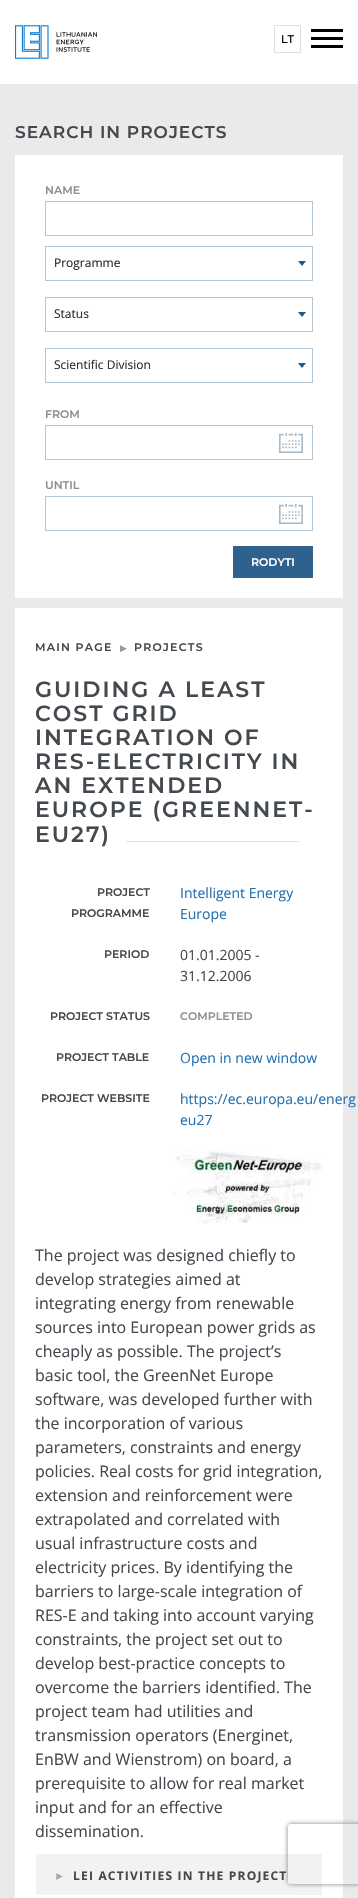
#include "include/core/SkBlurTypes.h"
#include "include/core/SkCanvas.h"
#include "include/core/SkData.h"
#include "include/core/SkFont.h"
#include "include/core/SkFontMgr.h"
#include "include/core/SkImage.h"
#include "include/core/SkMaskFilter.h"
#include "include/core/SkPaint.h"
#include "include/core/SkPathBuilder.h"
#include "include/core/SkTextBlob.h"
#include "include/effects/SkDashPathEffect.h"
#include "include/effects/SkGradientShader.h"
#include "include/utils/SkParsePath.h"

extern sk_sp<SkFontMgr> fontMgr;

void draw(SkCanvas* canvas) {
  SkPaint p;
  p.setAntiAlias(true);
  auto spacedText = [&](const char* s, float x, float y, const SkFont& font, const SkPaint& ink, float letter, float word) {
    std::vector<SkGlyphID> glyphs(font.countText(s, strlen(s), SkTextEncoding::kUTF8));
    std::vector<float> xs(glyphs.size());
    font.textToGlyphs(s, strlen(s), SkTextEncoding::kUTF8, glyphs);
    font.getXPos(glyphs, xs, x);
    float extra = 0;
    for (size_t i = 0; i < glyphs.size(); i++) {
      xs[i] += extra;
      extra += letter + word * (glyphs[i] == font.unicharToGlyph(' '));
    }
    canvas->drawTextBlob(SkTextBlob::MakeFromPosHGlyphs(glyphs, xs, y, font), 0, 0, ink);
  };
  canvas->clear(SkColorSetRGB(234, 234, 234));
  p.setColor(SK_ColorWHITE);
  canvas->drawRect(SkRect::MakeLTRB(0, 0, 358, 84), p);
  canvas->drawImageRect(SkImages::DeferredFromEncodedData(SkData::MakeFromFileName("images/1.png")), SkRect::MakeLTRB(15, 25, 97, 59), SkSamplingOptions());
  p.setStyle(SkPaint::kStroke_Style);
  p.setStrokeWidth(1);
  p.setColor(SkColorSetRGB(224, 224, 224));
  canvas->drawRect(SkRect::MakeLTRB(274.5f, 25.5f, 300.5f, 52.5f), p);
  p.setStyle(SkPaint::kFill_Style);
  p.setColor(SK_ColorBLACK);
  canvas->drawRect(SkRect::MakeLTRB(311, 29, 343, 32), p);
  canvas->drawRect(SkRect::MakeLTRB(311, 37, 343, 40), p);
  canvas->drawRect(SkRect::MakeLTRB(311, 45, 343, 48), p);
  p.setColor(SK_ColorWHITE);
  canvas->drawRect(SkRect::MakeLTRB(15, 155, 343, 598), p);
  p.setStyle(SkPaint::kStroke_Style);
  p.setColor(SkColorSetRGB(180, 197, 212));
  canvas->drawRect(SkRect::MakeLTRB(45.5f, 201.5f, 312.5f, 235.5f), p);
  canvas->drawRect(SkRect::MakeLTRB(45.5f, 246.5f, 312.5f, 280.5f), p);
  p.setStyle(SkPaint::kFill_Style);
  p.setColor(SkColorSetRGB(33, 87, 133));
  canvas->drawPath(SkPathBuilder().moveTo(298, 261).lineTo(306, 261).lineTo(302, 266).close().detach(), p);
  p.setStyle(SkPaint::kStroke_Style);
  p.setColor(SkColorSetRGB(180, 197, 212));
  canvas->drawRect(SkRect::MakeLTRB(45.5f, 297.5f, 312.5f, 331.5f), p);
  p.setStyle(SkPaint::kFill_Style);
  p.setColor(SkColorSetRGB(33, 87, 133));
  canvas->drawPath(SkPathBuilder().moveTo(298, 312).lineTo(306, 312).lineTo(302, 317).close().detach(), p);
  p.setStyle(SkPaint::kStroke_Style);
  p.setColor(SkColorSetRGB(180, 197, 212));
  canvas->drawRect(SkRect::MakeLTRB(45.5f, 348.5f, 312.5f, 382.5f), p);
  p.setStyle(SkPaint::kFill_Style);
  p.setColor(SkColorSetRGB(33, 87, 133));
  canvas->drawPath(SkPathBuilder().moveTo(298, 363).lineTo(306, 363).lineTo(302, 368).close().detach(), p);
  p.setStyle(SkPaint::kStroke_Style);
  p.setColor(SkColorSetRGB(180, 197, 212));
  canvas->drawRect(SkRect::MakeLTRB(45.5f, 425.5f, 312.5f, 459.5f), p);
  canvas->drawImageRect(SkImages::DeferredFromEncodedData(SkData::MakeFromFileName("images/2.png")), SkRect::MakeLTRB(279, 433, 303, 453), SkSamplingOptions());
  canvas->drawRect(SkRect::MakeLTRB(45.5f, 496.5f, 312.5f, 530.5f), p);
  canvas->drawImageRect(SkImages::DeferredFromEncodedData(SkData::MakeFromFileName("images/2.png")), SkRect::MakeLTRB(279, 504, 303, 524), SkSamplingOptions());
  p.setStyle(SkPaint::kFill_Style);
  p.setColor(SkColorSetRGB(46, 97, 141));
  canvas->drawRect(SkRect::MakeLTRB(233, 546, 313, 578), p);
  p.setColor(SK_ColorWHITE);
  canvas->drawRect(SkRect::MakeLTRB(15, 608, 343, 1898), p);
  p.setColor(SkColorSetRGB(226, 226, 226));
  canvas->drawRect(SkRect::MakeLTRB(126, 841, 299, 842), p);
  canvas->drawImageRect(SkImages::DeferredFromEncodedData(SkData::MakeFromFileName("images/3.png")), SkRect::MakeLTRB(173, 1150, 323, 1223), SkSamplingOptions());
  p.setColor(SkColorSetRGB(242, 242, 242));
  canvas->drawRect(SkRect::MakeLTRB(36, 1854, 322, 1895), p);
  canvas->drawImageRect(SkImages::DeferredFromEncodedData(SkData::MakeFromFileName("images/4.png")), SkRect::MakeLTRB(56, 1873, 63, 1880), SkSamplingOptions());
  canvas->save();
  canvas->clipPath(SkPathBuilder(SkPathFillType::kEvenOdd).moveTo(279, 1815).lineTo(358, 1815).lineTo(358, 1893).lineTo(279, 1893).close().moveTo(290, 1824).lineTo(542, 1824).cubicTo(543, 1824, 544, 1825, 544, 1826).lineTo(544, 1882).cubicTo(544, 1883, 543, 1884, 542, 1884).lineTo(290, 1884).cubicTo(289, 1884, 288, 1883, 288, 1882).lineTo(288, 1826).cubicTo(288, 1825, 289, 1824, 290, 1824).close().detach(), true);
  p.setColor(SkColorSetRGB(128, 128, 128));
  p.setMaskFilter(SkMaskFilter::MakeBlur(kNormal_SkBlurStyle, 2.5f));
  canvas->drawRoundRect(SkRect::MakeLTRB(288, 1824, 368, 1884), 2, 2, p);
  p.setMaskFilter(nullptr);
  canvas->restore();
  SkFont font1(fontMgr->matchFamilyStyle("Montserrat", SkFontStyle(500, SkFontStyle::kNormal_Width, SkFontStyle::kUpright_Slant)), 11);
  font1.setSubpixel(true);
  p.setColor(SK_ColorBLACK);
  canvas->drawString("LT", 281, 43, font1, p);
  SkFont font2(fontMgr->matchFamilyStyle("Montserrat", SkFontStyle(600, SkFontStyle::kNormal_Width, SkFontStyle::kUpright_Slant)), 17);
  font2.setSubpixel(true);
  p.setColor(SkColorSetRGB(67, 73, 78));
  spacedText("SEARCH IN PROJECTS", 15, 138, font2, p, 1, 0);
  SkFont font3(fontMgr->matchFamilyStyle("Montserrat", SkFontStyle(600, SkFontStyle::kNormal_Width, SkFontStyle::kUpright_Slant)), 11);
  font3.setSubpixel(true);
  p.setColor(SkColorSetRGB(143, 143, 143));
  canvas->drawString("NAME", 45, 194, font3, p);
  SkFont font4(fontMgr->matchFamilyStyle("Open Sans", SkFontStyle::Normal()), 12);
  font4.setSubpixel(true);
  p.setColor(SkColorSetRGB(40, 41, 42));
  canvas->drawString("Programme", 54, 267, font4, p);
  canvas->drawString("Status", 54, 318, font4, p);
  canvas->drawString("Scientific Division", 54, 369, font4, p);
  p.setColor(SkColorSetRGB(143, 143, 143));
  canvas->drawString("FROM", 45, 418, font3, p);
  canvas->drawString("UNTIL", 45, 489, font3, p);
  p.setColor(SK_ColorWHITE);
  canvas->drawString("RODYTI", 251, 566, font3, p);
  p.setColor(SkColorSetRGB(67, 73, 78));
  spacedText("MAIN PAGE", 35, 651, font3, p, 1.25f, 0);
  SkFont font5(fontMgr->matchFamilyStyle("DejaVu Sans", SkFontStyle::Normal()), 9);
  font5.setSubpixel(true);
  p.setColor(SkColorSetRGB(153, 153, 153));
  canvas->drawString("▶", 120, 651, font5, p);
  p.setColor(SkColorSetRGB(67, 73, 78));
  spacedText("PROJECTS", 134, 651, font3, p, 1.25f, 0);
  SkFont font6(fontMgr->matchFamilyStyle("Montserrat", SkFontStyle(600, SkFontStyle::kNormal_Width, SkFontStyle::kUpright_Slant)), 22);
  font6.setSubpixel(true);
  spacedText("GUIDING A LEAST", 35, 697, font6, p, 2, 0);
  spacedText("COST GRID", 35, 721, font6, p, 2, 0);
  spacedText("INTEGRATION OF", 35, 745, font6, p, 2, 0);
  spacedText("RES-ELECTRICITY IN", 35, 769, font6, p, 2, 0);
  spacedText("AN EXTENDED", 35, 793, font6, p, 2, 0);
  spacedText("EUROPE (GREENNET-", 35, 817, font6, p, 2, 0);
  spacedText("EU27)", 35, 842, font6, p, 2, 0);
  canvas->drawString("PROJECT", 97, 896, font3, p);
  canvas->drawString("PROGRAMME", 71, 917, font3, p);
  SkFont font7(fontMgr->matchFamilyStyle("Open Sans", SkFontStyle::Normal()), 14);
  font7.setSubpixel(true);
  p.setColor(SkColorSetRGB(34, 112, 178));
  canvas->drawString("Intelligent Energy", 180, 898, font7, p);
  canvas->drawString("Europe", 180, 919, font7, p);
  p.setColor(SkColorSetRGB(67, 73, 78));
  canvas->drawString("PERIOD", 104, 958, font3, p);
  canvas->drawString("01.01.2005 -", 180, 960, font7, p);
  canvas->drawString("31.12.2006", 180, 981, font7, p);
  canvas->drawString("PROJECT STATUS", 50, 1020, font3, p);
  p.setColor(SkColorSetRGB(143, 143, 143));
  canvas->drawString("COMPLETED", 180, 1020, font3, p);
  p.setColor(SkColorSetRGB(67, 73, 78));
  canvas->drawString("PROJECT TABLE", 56, 1061, font3, p);
  p.setColor(SkColorSetRGB(34, 112, 178));
  canvas->drawString("Open in new window", 180, 1063, font7, p);
  p.setColor(SkColorSetRGB(67, 73, 78));
  canvas->drawString("PROJECT WEBSITE", 41, 1102, font3, p);
  p.setColor(SkColorSetRGB(34, 112, 178));
  canvas->drawString("https://ec.europa.eu/energ", 180, 1104, font7, p);
  canvas->drawString("eu27", 180, 1125, font7, p);
  SkFont font8(fontMgr->matchFamilyStyle("Open Sans", SkFontStyle::Normal()), 16);
  font8.setSubpixel(true);
  p.setColor(SkColorSetRGB(67, 73, 78));
  canvas->drawString("The project was designed chiefly to", 35, 1261, font8, p);
  canvas->drawString("develop strategies aimed at", 35, 1285, font8, p);
  canvas->drawString("integrating energy from renewable", 35, 1309, font8, p);
  canvas->drawString("sources into European power grids as", 35, 1333, font8, p);
  canvas->drawString("cheaply as possible. The project’s", 35, 1357, font8, p);
  canvas->drawString("basic tool, the GreenNet Europe", 35, 1381, font8, p);
  canvas->drawString("software, was developed further with", 35, 1405, font8, p);
  canvas->drawString("the incorporation of various", 35, 1429, font8, p);
  canvas->drawString("parameters, constraints and energy", 35, 1453, font8, p);
  canvas->drawString("policies. Real costs for grid integration,", 35, 1477, font8, p);
  canvas->drawString("extension and reinforcement were", 35, 1501, font8, p);
  canvas->drawString("extrapolated and correlated with", 35, 1525, font8, p);
  canvas->drawString("usual infrastructure costs and", 35, 1549, font8, p);
  canvas->drawString("electricity prices. By identifying the", 35, 1573, font8, p);
  canvas->drawString("barriers to large-scale integration of", 35, 1597, font8, p);
  canvas->drawString("RES-E and taking into account varying", 35, 1621, font8, p);
  canvas->drawString("constraints, the project set out to", 35, 1645, font8, p);
  canvas->drawString("develop best-practice concepts to", 35, 1669, font8, p);
  canvas->drawString("overcome the barriers identified. The", 35, 1693, font8, p);
  canvas->drawString("project team had utilities and", 35, 1717, font8, p);
  canvas->drawString("transmission operators (Energinet,", 35, 1741, font8, p);
  canvas->drawString("EnBW and Wienstrom) on board, a", 35, 1765, font8, p);
  canvas->drawString("prerequisite to allow for real market", 35, 1789, font8, p);
  canvas->drawString("input and for an effective", 35, 1813, font8, p);
  canvas->drawString("dissemination.", 35, 1837, font8, p);
  SkFont font9(fontMgr->matchFamilyStyle("Open Sans", SkFontStyle::Bold()), 12);
  font9.setSubpixel(true);
  spacedText("LEI ACTIVITIES IN THE PROJECT", 73, 1880, font9, p, 1.2f, 0);
}
